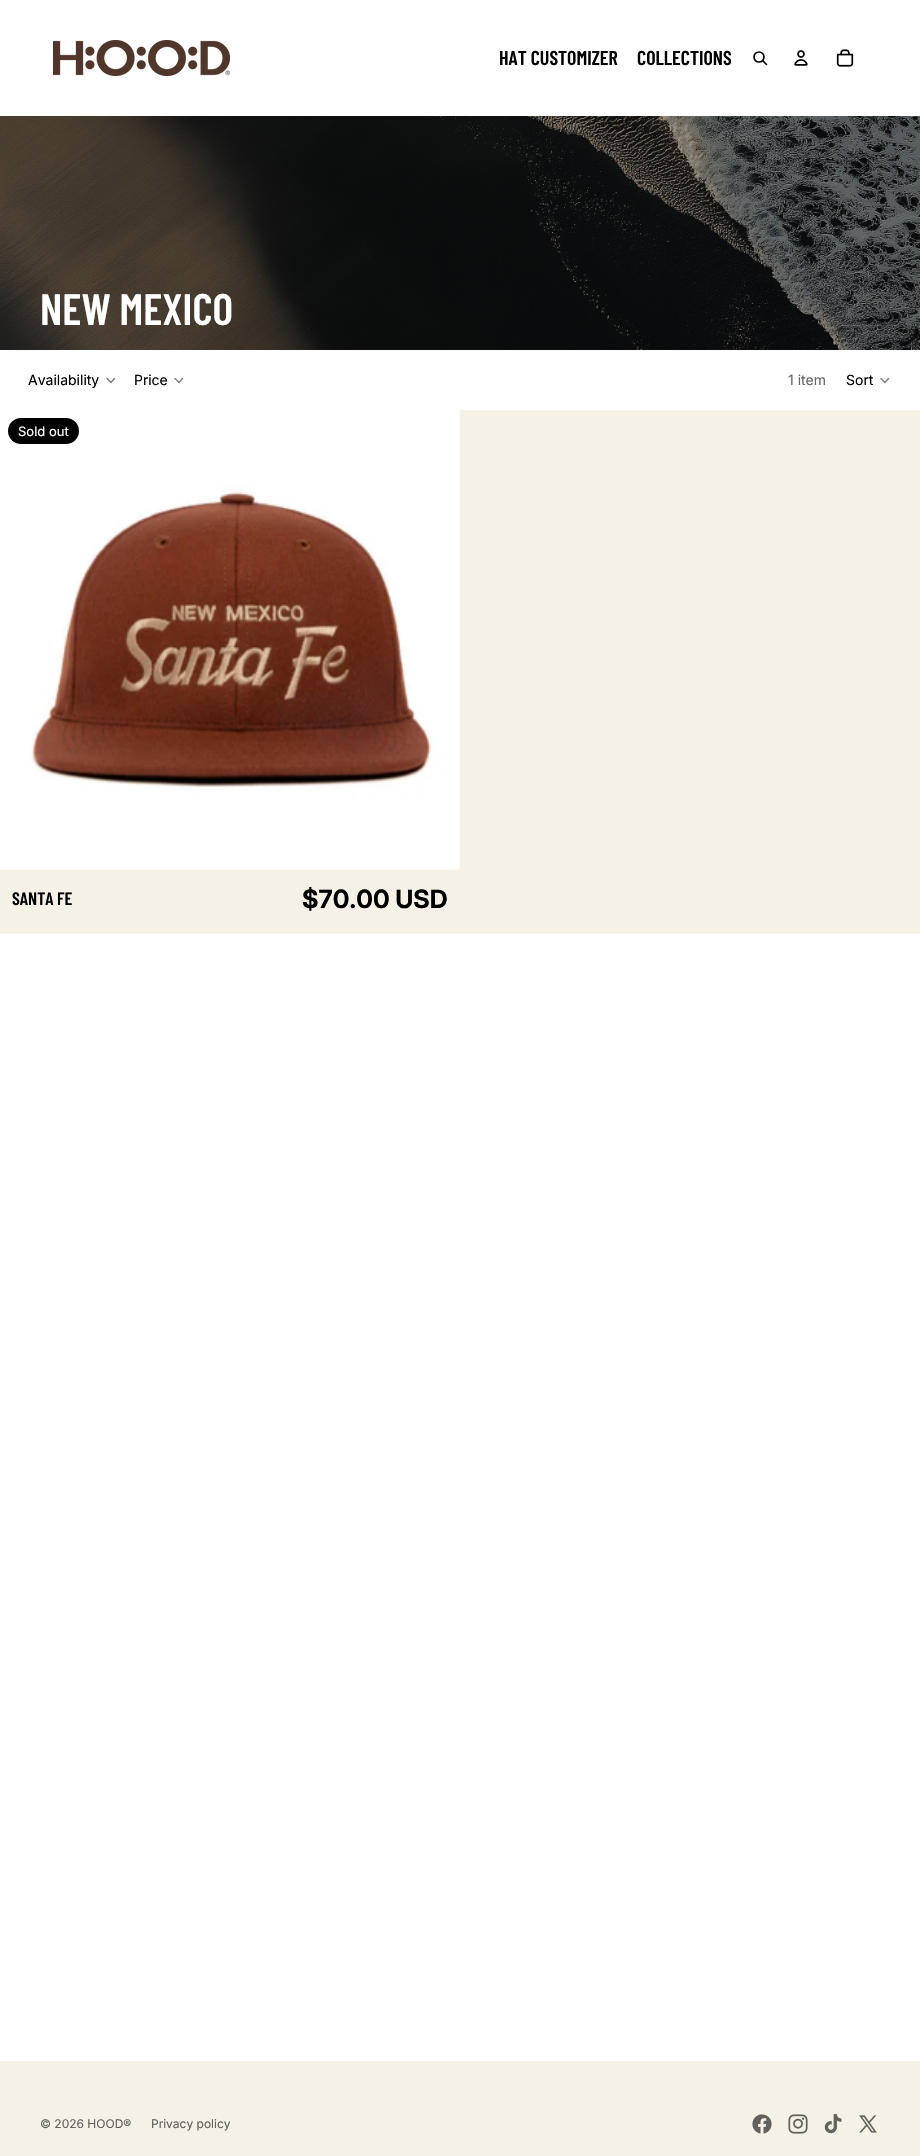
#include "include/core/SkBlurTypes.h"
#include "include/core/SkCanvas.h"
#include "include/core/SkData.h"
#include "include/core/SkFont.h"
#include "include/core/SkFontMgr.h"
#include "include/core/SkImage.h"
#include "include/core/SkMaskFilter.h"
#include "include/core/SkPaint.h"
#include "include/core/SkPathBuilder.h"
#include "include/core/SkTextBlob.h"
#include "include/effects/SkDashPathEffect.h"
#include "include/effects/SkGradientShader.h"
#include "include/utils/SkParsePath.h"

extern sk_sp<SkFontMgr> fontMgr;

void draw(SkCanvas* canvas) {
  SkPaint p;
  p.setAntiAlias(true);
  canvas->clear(SK_ColorWHITE);
  canvas->drawImageRect(SkImages::DeferredFromEncodedData(SkData::MakeFromFileName("images/1.png")), SkRect::MakeLTRB(53, 40, 230, 76), SkSamplingOptions());
  p.setStyle(SkPaint::kStroke_Style);
  p.setStrokeWidth(1.7f);
  p.setColor(SK_ColorBLACK);
  canvas->drawCircle(759, 57, 5, p);
  p.setStrokeCap(SkPaint::kRound_Cap);
  p.setStrokeJoin(SkPaint::kRound_Join);
  canvas->drawPath(SkPathBuilder().moveTo(763, 61).lineTo(766.5f, 64.5f).detach(), p);
  canvas->drawImageRect(SkImages::DeferredFromEncodedData(SkData::MakeFromFileName("images/2.png")), SkRect::MakeLTRB(794, 50, 808, 66), SkSamplingOptions());
  canvas->drawImageRect(SkImages::DeferredFromEncodedData(SkData::MakeFromFileName("images/3.png")), SkRect::MakeLTRB(836, 49, 854, 67), SkSamplingOptions());
  canvas->drawImageRect(SkImages::DeferredFromEncodedData(SkData::MakeFromFileName("images/4.png")), SkRect::MakeLTRB(0, 116, 920, 350), SkSamplingOptions());
  p.setStrokeWidth(1.5f);
  p.setColor(SkColorSetRGB(128, 128, 128));
  canvas->drawPath(SkPathBuilder().moveTo(114.5f, 378.5f).lineTo(111, 382.5f).lineTo(107, 378.5f).detach(), p);
  canvas->drawPath(SkPathBuilder().moveTo(182.5f, 378.5f).lineTo(179, 382.5f).lineTo(175, 378.5f).detach(), p);
  canvas->drawPath(SkPathBuilder().moveTo(888.5f, 378.5f).lineTo(885, 382.5f).lineTo(881, 378.5f).detach(), p);
  p.setStyle(SkPaint::kFill_Style);
  p.setColor(SkColorSetRGB(245, 241, 230));
  canvas->drawRect(SkRect::MakeLTRB(0, 410, 920, 934), p);
  canvas->drawImageRect(SkImages::DeferredFromEncodedData(SkData::MakeFromFileName("images/5.png")), SkRect::MakeLTRB(0, 410, 460, 870), SkSamplingOptions());
  p.setColor(SK_ColorBLACK);
  canvas->drawRoundRect(SkRect::MakeLTRB(8, 418, 79, 444), 13, 13, p);
  p.setColor(SkColorSetRGB(245, 241, 230));
  canvas->drawRect(SkRect::MakeLTRB(0, 2061, 920, 2156), p);
  canvas->drawImageRect(SkImages::DeferredFromEncodedData(SkData::MakeFromFileName("images/6.png")), SkRect::MakeLTRB(752, 2114, 772, 2134), SkSamplingOptions());
  canvas->drawImageRect(SkImages::DeferredFromEncodedData(SkData::MakeFromFileName("images/7.png")), SkRect::MakeLTRB(788, 2114, 808, 2134), SkSamplingOptions());
  canvas->drawImageRect(SkImages::DeferredFromEncodedData(SkData::MakeFromFileName("images/8.png")), SkRect::MakeLTRB(824, 2114, 842, 2134), SkSamplingOptions());
  canvas->drawImageRect(SkImages::DeferredFromEncodedData(SkData::MakeFromFileName("images/9.png")), SkRect::MakeLTRB(859, 2115, 877, 2133), SkSamplingOptions());
  SkFont font1(fontMgr->matchFamilyStyle("Barlow Condensed", SkFontStyle(600, SkFontStyle::kNormal_Width, SkFontStyle::kUpright_Slant)), 20);
  font1.setSubpixel(true);
  p.setColor(SK_ColorBLACK);
  canvas->drawString("HAT CUSTOMIZER", 499, 65, font1, p);
  canvas->drawString("COLLECTIONS", 637, 65, font1, p);
  SkFont font2(fontMgr->matchFamilyStyle("Barlow Condensed", SkFontStyle(600, SkFontStyle::kNormal_Width, SkFontStyle::kUpright_Slant)), 44);
  font2.setSubpixel(true);
  p.setColor(SK_ColorWHITE);
  canvas->drawString("NEW MEXICO", 40, 325, font2, p);
  SkFont font3(fontMgr->matchFamilyStyle("Inter", SkFontStyle::Normal()), 14);
  font3.setSubpixel(true);
  p.setColor(SK_ColorBLACK);
  canvas->drawString("Availability", 28, 385, font3, p);
  canvas->drawString("Price", 134, 385, font3, p);
  p.setColor(SkColorSetRGB(102, 102, 102));
  canvas->drawString("1 item", 788, 385, font3, p);
  p.setColor(SK_ColorBLACK);
  canvas->drawString("Sort", 846, 385, font3, p);
  SkFont font4(fontMgr->matchFamilyStyle("Inter", SkFontStyle::Normal()), 13);
  font4.setSubpixel(true);
  p.setColor(SK_ColorWHITE);
  canvas->drawString("Sold out", 18, 436, font4, p);
  SkFont font5(fontMgr->matchFamilyStyle("Barlow Condensed", SkFontStyle(600, SkFontStyle::kNormal_Width, SkFontStyle::kUpright_Slant)), 18);
  font5.setSubpixel(true);
  p.setColor(SK_ColorBLACK);
  canvas->drawString("SANTA FE", 12, 905, font5, p);
  SkFont font6(fontMgr->matchFamilyStyle("Inter", SkFontStyle::Bold()), 25.25f);
  font6.setSubpixel(true);
  canvas->drawString("$70.00 USD", 302, 908, font6, p);
  SkFont font7(fontMgr->matchFamilyStyle("Inter", SkFontStyle::Normal()), 12);
  font7.setSubpixel(true);
  p.setColor(SkColorSetRGB(98, 96, 92));
  canvas->drawString("© 2026 HOOD®", 40, 2128, font7, p);
  canvas->drawString("Privacy policy", 151, 2128, font7, p);
}
